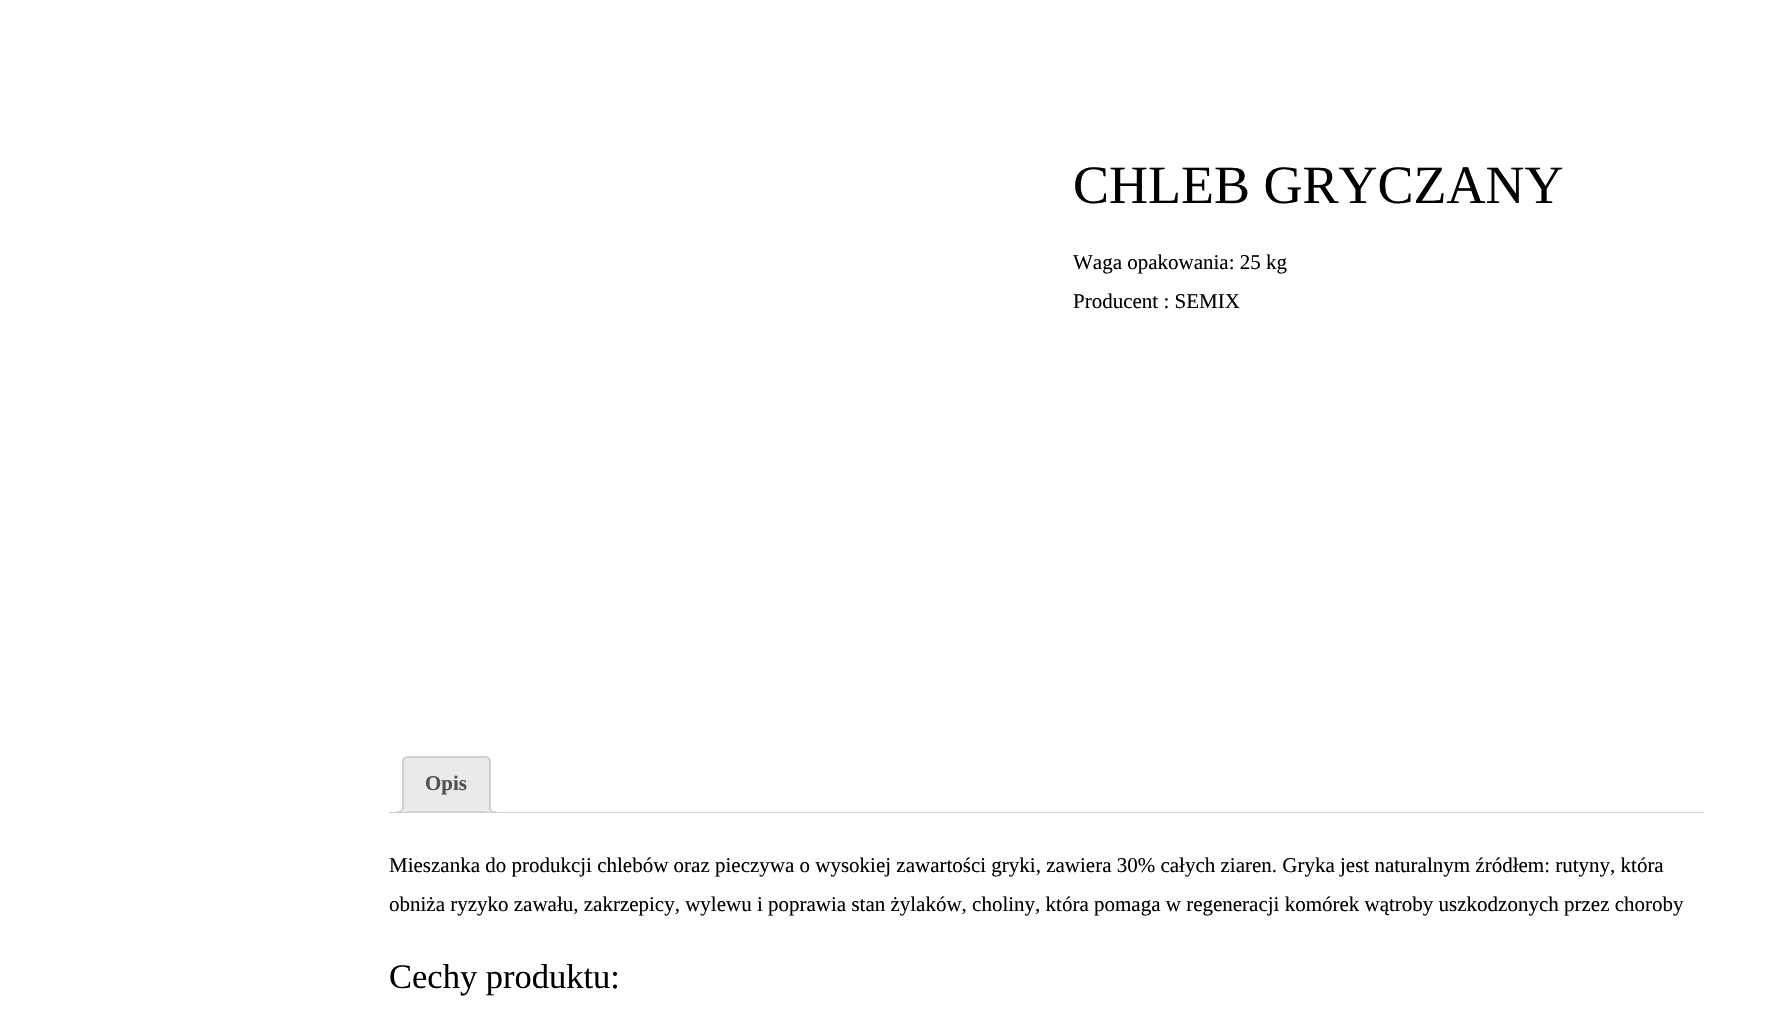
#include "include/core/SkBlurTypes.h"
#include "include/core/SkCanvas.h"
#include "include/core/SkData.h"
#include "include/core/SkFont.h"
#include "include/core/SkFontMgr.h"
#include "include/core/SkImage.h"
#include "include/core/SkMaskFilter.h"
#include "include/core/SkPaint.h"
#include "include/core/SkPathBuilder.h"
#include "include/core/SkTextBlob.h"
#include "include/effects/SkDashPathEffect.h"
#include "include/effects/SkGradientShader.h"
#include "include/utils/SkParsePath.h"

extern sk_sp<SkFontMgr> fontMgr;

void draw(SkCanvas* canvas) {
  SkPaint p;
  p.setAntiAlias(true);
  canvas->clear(SK_ColorWHITE);
  p.setColor(SkColorSetRGB(235, 233, 235));
  canvas->drawPath(SkPathBuilder().moveTo(408, 757).lineTo(485, 757).cubicTo(488, 757, 490, 759, 490, 762).lineTo(490, 812).lineTo(403, 812).lineTo(403, 762).cubicTo(403, 759, 405, 757, 408, 757).close().detach(), p);
  p.setStyle(SkPaint::kStroke_Style);
  p.setStrokeWidth(2);
  p.setColor(SkColorSetRGB(211, 206, 210));
  canvas->drawPath(SkPathBuilder().moveTo(408, 757).lineTo(485, 757).cubicTo(488, 757, 490, 759, 490, 762).lineTo(490, 812).lineTo(403, 812).lineTo(403, 762).cubicTo(403, 759, 405, 757, 408, 757).close().detach(), p);
  canvas->save();
  canvas->clipRect(SkRect::MakeLTRB(389, 756, 1704, 813));
  p.setStyle(SkPaint::kFill_Style);
  p.setColor(SkColorSetRGB(235, 233, 235));
  canvas->drawPath(SkPathBuilder().moveTo(399, 813).lineTo(399, 816).cubicTo(404, 816, 407, 814.5f, 407, 809).lineTo(403, 809).cubicTo(402.5f, 811, 401, 812.5f, 399, 813).close().detach(), p);
  canvas->restore();
  p.setColor(SkColorSetRGB(211, 206, 210));
  canvas->drawPath(SkPathBuilder(SkPathFillType::kEvenOdd).moveTo(396, 805.5f).lineTo(403.5f, 805.5f).cubicTo(403.5f, 811, 401.5f, 813, 396, 813).close().moveTo(396, 805.5f).lineTo(402, 805.5f).cubicTo(402, 810, 400.5f, 811.5f, 396, 811.5f).close().detach(), p);
  canvas->save();
  canvas->clipRect(SkRect::MakeLTRB(389, 756, 1704, 813));
  p.setColor(SkColorSetRGB(235, 233, 235));
  canvas->drawPath(SkPathBuilder().moveTo(486, 809).cubicTo(486, 814.5f, 489, 816, 494, 816).lineTo(494, 813).cubicTo(492, 812.5f, 490, 811, 489.5f, 809).close().detach(), p);
  canvas->restore();
  p.setColor(SkColorSetRGB(211, 206, 210));
  canvas->drawPath(SkPathBuilder(SkPathFillType::kEvenOdd).moveTo(489, 805.5f).lineTo(496.5f, 805.5f).lineTo(496.5f, 813).cubicTo(492.5f, 813, 489, 811.5f, 489, 807).close().moveTo(490.5f, 805.5f).lineTo(496.5f, 805.5f).lineTo(496.5f, 811.5f).cubicTo(493.5f, 811.5f, 490.5f, 810.5f, 490.5f, 807).close().detach(), p);
  canvas->drawRect(SkRect::MakeLTRB(389, 812, 1704, 813), p);
  SkFont font1(fontMgr->matchFamilyStyle("Liberation Serif", SkFontStyle::Normal()), 54);
  font1.setSubpixel(true);
  p.setColor(SK_ColorBLACK);
  canvas->drawString("CHLEB GRYCZANY", 1073, 203, font1, p);
  SkFont font2(fontMgr->matchFamilyStyle("Liberation Serif", SkFontStyle::Normal()), 21);
  font2.setSubpixel(true);
  canvas->drawString("Waga opakowania: 25 kg", 1073, 269, font2, p);
  canvas->drawString("Producent : SEMIX", 1073, 308, font2, p);
  SkFont font3(fontMgr->matchFamilyStyle("Liberation Serif", SkFontStyle::Bold()), 21);
  font3.setSubpixel(true);
  p.setColor(SkColorSetRGB(81, 81, 81));
  canvas->drawString("Opis", 425, 790, font3, p);
  p.setColor(SK_ColorBLACK);
  canvas->drawString("Mieszanka do produkcji chlebów oraz pieczywa o wysokiej zawartości gryki, zawiera 30% całych ziaren. Gryka jest naturalnym źródłem: rutyny, która", 389, 872, font2, p);
  canvas->drawString("obniża ryzyko zawału, zakrzepicy, wylewu i poprawia stan żylaków, choliny, która pomaga w regeneracji komórek wątroby uszkodzonych przez choroby", 389, 911, font2, p);
  SkFont font4(fontMgr->matchFamilyStyle("Liberation Serif", SkFontStyle::Normal()), 34.5f);
  font4.setSubpixel(true);
  canvas->drawString("Cechy produktu:", 389, 988, font4, p);
}
